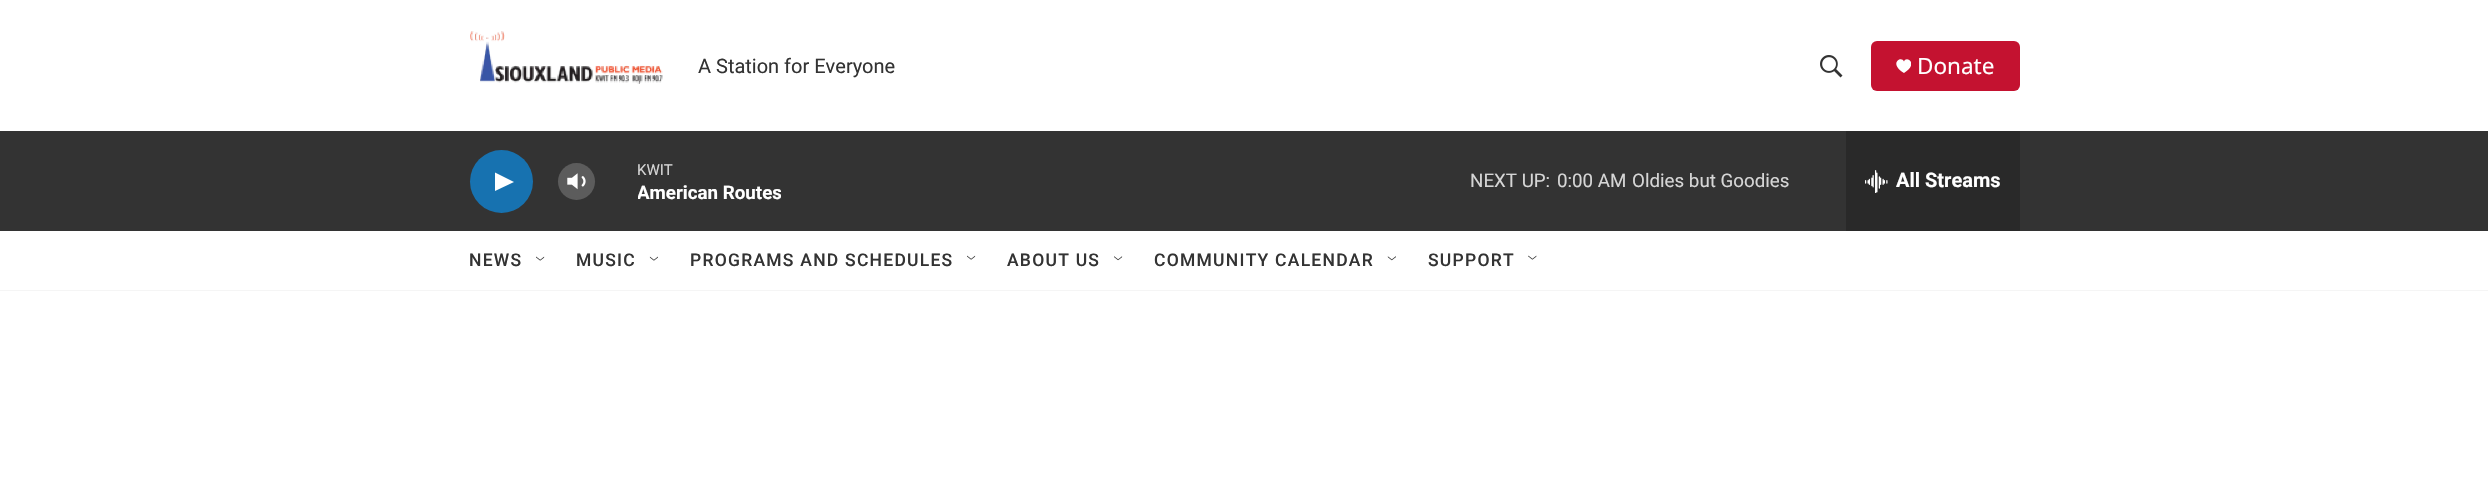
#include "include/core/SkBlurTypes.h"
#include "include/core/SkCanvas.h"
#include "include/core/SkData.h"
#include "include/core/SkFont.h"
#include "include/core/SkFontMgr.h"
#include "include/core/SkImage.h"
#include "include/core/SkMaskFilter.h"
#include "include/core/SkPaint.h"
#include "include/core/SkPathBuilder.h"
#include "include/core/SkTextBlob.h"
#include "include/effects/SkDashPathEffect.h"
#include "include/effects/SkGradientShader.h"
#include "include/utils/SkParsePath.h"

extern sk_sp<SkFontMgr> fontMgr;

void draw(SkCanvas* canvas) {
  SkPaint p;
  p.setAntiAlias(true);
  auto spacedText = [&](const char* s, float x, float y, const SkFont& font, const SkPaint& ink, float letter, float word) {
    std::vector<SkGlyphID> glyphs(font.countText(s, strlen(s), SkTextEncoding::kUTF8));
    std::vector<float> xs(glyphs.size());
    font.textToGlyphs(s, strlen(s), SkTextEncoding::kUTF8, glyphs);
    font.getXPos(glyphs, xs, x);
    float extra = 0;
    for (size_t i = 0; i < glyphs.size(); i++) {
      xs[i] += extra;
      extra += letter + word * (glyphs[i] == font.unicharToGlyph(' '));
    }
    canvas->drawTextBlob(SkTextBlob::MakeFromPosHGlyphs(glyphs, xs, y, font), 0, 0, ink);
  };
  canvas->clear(SK_ColorWHITE);
  p.setColor(SkColorSetRGB(245, 245, 245));
  canvas->drawRect(SkRect::MakeLTRB(0, 290, 2488, 291), p);
  canvas->drawImageRect(SkImages::DeferredFromEncodedData(SkData::MakeFromFileName("images/1.png")), SkRect::MakeLTRB(470, 31, 663, 84), SkSamplingOptions());
  canvas->drawImageRect(SkImages::DeferredFromEncodedData(SkData::MakeFromFileName("images/2.png")), SkRect::MakeLTRB(1820, 55, 1843, 78), SkSamplingOptions());
  p.setColor(SkColorSetRGB(196, 18, 48));
  canvas->drawRoundRect(SkRect::MakeLTRB(1871, 41, 2020, 91), 6, 6, p);
  canvas->save();
  canvas->clipRect(SkRect::MakeLTRB(1896, 59, 1911, 74));
  p.setColor(SK_ColorWHITE);
  canvas->drawPath(SkPathBuilder().moveTo(1904, 61.5f).cubicTo(1901.5f, 55, 1888, 63.5f, 1904, 73).cubicTo(1919.5f, 63.5f, 1906, 55, 1904, 61.5f).close().detach(), p);
  canvas->restore();
  p.setColor(SkColorSetRGB(51, 51, 51));
  canvas->drawRect(SkRect::MakeLTRB(0, 131, 2488, 231), p);
  p.setColor(SkColorSetRGB(23, 114, 176));
  canvas->drawCircle(501.5f, 181.5f, 31.5f, p);
  p.setColor(SK_ColorWHITE);
  canvas->drawPath(SkPathBuilder().moveTo(495, 172.5f).lineTo(514, 182).lineTo(495, 191).close().detach(), p);
  canvas->drawImageRect(SkImages::DeferredFromEncodedData(SkData::MakeFromFileName("images/3.png")), SkRect::MakeLTRB(567, 173, 586, 190), SkSamplingOptions());
  p.setColor(SkColorSetARGB(51, 255, 255, 255));
  canvas->drawCircle(576.5f, 181.5f, 18.5f, p);
  p.setColor(SkColorSetRGB(41, 41, 41));
  canvas->drawRect(SkRect::MakeLTRB(1846, 131, 2020, 231), p);
  canvas->drawImageRect(SkImages::DeferredFromEncodedData(SkData::MakeFromFileName("images/4.png")), SkRect::MakeLTRB(1865, 170, 1888, 193), SkSamplingOptions());
  canvas->drawImageRect(SkImages::DeferredFromEncodedData(SkData::MakeFromFileName("images/5.png")), SkRect::MakeLTRB(536, 256, 545, 261), SkSamplingOptions());
  canvas->drawImageRect(SkImages::DeferredFromEncodedData(SkData::MakeFromFileName("images/6.png")), SkRect::MakeLTRB(649, 256, 658, 261), SkSamplingOptions());
  canvas->drawImageRect(SkImages::DeferredFromEncodedData(SkData::MakeFromFileName("images/7.png")), SkRect::MakeLTRB(967, 255, 976, 260), SkSamplingOptions());
  canvas->drawImageRect(SkImages::DeferredFromEncodedData(SkData::MakeFromFileName("images/8.png")), SkRect::MakeLTRB(1114, 256, 1123, 261), SkSamplingOptions());
  canvas->drawImageRect(SkImages::DeferredFromEncodedData(SkData::MakeFromFileName("images/9.png")), SkRect::MakeLTRB(1387, 256, 1396, 261), SkSamplingOptions());
  canvas->drawImageRect(SkImages::DeferredFromEncodedData(SkData::MakeFromFileName("images/10.png")), SkRect::MakeLTRB(1528, 255, 1537, 260), SkSamplingOptions());
  SkFont font1(fontMgr->matchFamilyStyle("Roboto", SkFontStyle::Normal()), 20);
  font1.setSubpixel(true);
  p.setColor(SkColorSetRGB(51, 51, 51));
  canvas->drawString("A Station for Everyone", 698, 73, font1, p);
  SkFont font2(fontMgr->matchFamilyStyle("Noto Sans", SkFontStyle::Normal()), 22.5f);
  font2.setSubpixel(true);
  p.setColor(SK_ColorWHITE);
  canvas->drawString("Donate", 1917, 74, font2, p);
  SkFont font3(fontMgr->matchFamilyStyle("Roboto", SkFontStyle::Normal()), 15);
  font3.setSubpixel(true);
  p.setColor(SkColorSetRGB(214, 214, 214));
  canvas->drawString("KWIT", 637, 175, font3, p);
  canvas->save();
  canvas->clipRect(SkRect::MakeLTRB(638, 181, 781, 204));
  SkFont font4(fontMgr->matchFamilyStyle("Roboto", SkFontStyle::Bold()), 18.75f);
  font4.setSubpixel(true);
  p.setColor(SK_ColorWHITE);
  canvas->drawString("American Routes", 637, 199, font4, p);
  canvas->restore();
  SkFont font5(fontMgr->matchFamilyStyle("Roboto", SkFontStyle::Normal()), 18.75f);
  font5.setSubpixel(true);
  p.setColor(SkColorSetRGB(214, 214, 214));
  canvas->drawString("NEXT UP:", 1470, 187, font5, p);
  canvas->drawString("0:00 AM", 1557, 187, font5, p);
  canvas->drawString("Oldies but Goodies", 1632, 187, font5, p);
  SkFont font6(fontMgr->matchFamilyStyle("Roboto", SkFontStyle::Bold()), 20);
  font6.setSubpixel(true);
  p.setColor(SK_ColorWHITE);
  canvas->drawString("All Streams", 1896, 187, font6, p);
  SkFont font7(fontMgr->matchFamilyStyle("Roboto", SkFontStyle(500, SkFontStyle::kNormal_Width, SkFontStyle::kUpright_Slant)), 17.5f);
  font7.setSubpixel(true);
  p.setColor(SkColorSetRGB(51, 51, 51));
  spacedText("NEWS", 469, 266, font7, p, 1.25f, 0);
  spacedText("MUSIC", 576, 266, font7, p, 1.25f, 0);
  spacedText("PROGRAMS AND SCHEDULES", 690, 266, font7, p, 1.25f, 0);
  spacedText("ABOUT US", 1007, 266, font7, p, 1.25f, 0);
  spacedText("COMMUNITY CALENDAR", 1154, 266, font7, p, 1.25f, 0);
  spacedText("SUPPORT", 1428, 266, font7, p, 1.25f, 0);
}
